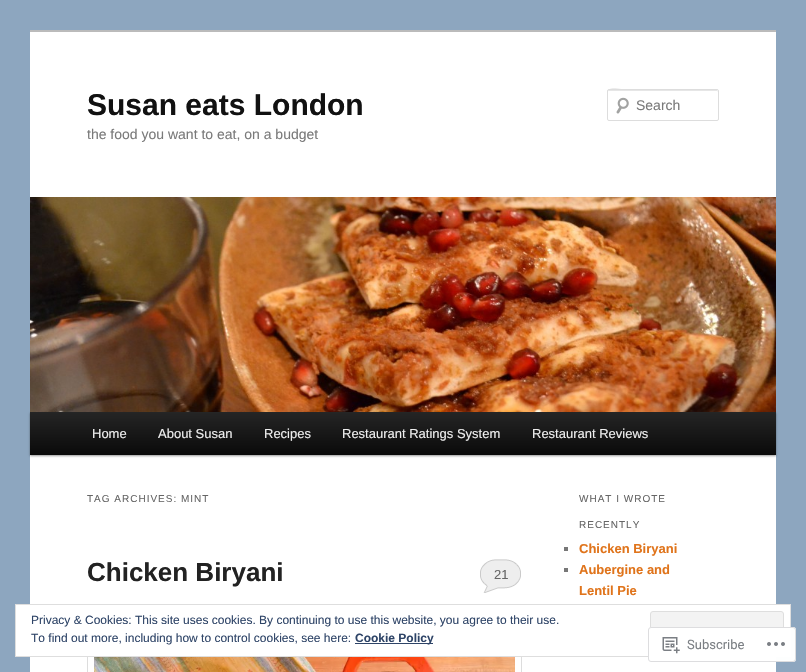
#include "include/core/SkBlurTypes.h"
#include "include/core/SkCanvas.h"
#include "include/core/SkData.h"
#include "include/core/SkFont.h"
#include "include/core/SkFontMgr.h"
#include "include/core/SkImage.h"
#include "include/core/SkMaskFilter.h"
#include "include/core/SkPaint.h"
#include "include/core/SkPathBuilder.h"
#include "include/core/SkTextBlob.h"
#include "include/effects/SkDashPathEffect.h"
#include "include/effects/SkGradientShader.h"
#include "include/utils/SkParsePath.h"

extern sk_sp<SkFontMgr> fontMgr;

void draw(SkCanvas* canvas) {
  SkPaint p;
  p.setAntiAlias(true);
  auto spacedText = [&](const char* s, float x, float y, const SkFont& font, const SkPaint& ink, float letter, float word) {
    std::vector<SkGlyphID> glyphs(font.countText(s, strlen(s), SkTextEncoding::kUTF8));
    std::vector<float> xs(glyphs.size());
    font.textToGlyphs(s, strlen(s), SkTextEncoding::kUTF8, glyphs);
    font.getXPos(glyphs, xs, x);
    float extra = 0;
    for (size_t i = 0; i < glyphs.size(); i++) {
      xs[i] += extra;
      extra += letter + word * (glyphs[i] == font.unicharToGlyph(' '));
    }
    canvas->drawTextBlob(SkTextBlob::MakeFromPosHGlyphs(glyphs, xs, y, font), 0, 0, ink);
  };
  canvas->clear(SkColorSetRGB(141, 166, 191));
  p.setColor(SK_ColorWHITE);
  canvas->drawRect(SkRect::MakeLTRB(30, 32, 776, 672), p);
  p.setColor(SkColorSetRGB(187, 187, 187));
  canvas->drawRect(SkRect::MakeLTRB(30, 30, 776, 32), p);
  canvas->drawImageRect(SkImages::DeferredFromEncodedData(SkData::MakeFromFileName("images/1.png")), SkRect::MakeLTRB(616, 97, 629, 114), SkSamplingOptions());
  p.setColor(SkColorSetRGB(230, 230, 230));
  canvas->drawPath(SkPathBuilder().moveTo(609, 91).lineTo(718, 91).lineTo(718, 92).lineTo(717, 90).lineTo(627, 90).cubicTo(623, 90, 608, 85, 608, 92).cubicTo(608, 91, 608, 91, 609, 91).close().detach(), p);
  p.setStyle(SkPaint::kStroke_Style);
  p.setStrokeWidth(1);
  p.setColor(SkColorSetRGB(221, 221, 221));
  canvas->drawRoundRect(SkRect::MakeLTRB(607.5f, 89.5f, 718.5f, 120.5f), 1.5f, 1.5f, p);
  p.setStyle(SkPaint::kFill_Style);
  p.setColor(SkColorSetARGB(102, 0, 0, 0));
  p.setMaskFilter(SkMaskFilter::MakeBlur(kNormal_SkBlurStyle, 1));
  canvas->drawRect(SkRect::MakeLTRB(30, 413, 776, 456), p);
  p.setMaskFilter(nullptr);
  canvas->drawImageRect(SkImages::DeferredFromEncodedData(SkData::MakeFromFileName("images/2.png")), SkRect::MakeLTRB(30, 197, 776, 412), SkSamplingOptions());
  {
    const SkColor colors[] = {SkColorSetRGB(37, 37, 37), SkColorSetRGB(10, 10, 10)};
    const float stops[] = {0, 1};
    const SkPoint ends[] = {{403, 412}, {403, 455}};
    p.setShader(SkGradientShader::MakeLinear(ends, colors, stops, 2, SkTileMode::kClamp));
    p.setAlpha(255);
  }
  canvas->drawRect(SkRect::MakeLTRB(30, 412, 776, 455), p);
  p.setShader(nullptr);
  p.setColor(SkColorSetRGB(238, 238, 238));
  canvas->drawRect(SkRect::MakeLTRB(480, 559, 521, 593), p);
  canvas->drawImageRect(SkImages::DeferredFromEncodedData(SkData::MakeFromFileName("images/3.png")), SkRect::MakeLTRB(479, 557, 522, 593), SkSamplingOptions());
  p.setStyle(SkPaint::kStroke_Style);
  p.setColor(SkColorSetRGB(221, 221, 221));
  canvas->drawRect(SkRect::MakeLTRB(87.5f, 648.5f, 521.5f, 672.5f), p);
  canvas->drawImageRect(SkImages::DeferredFromEncodedData(SkData::MakeFromFileName("images/4.png")), SkRect::MakeLTRB(94, 657, 515, 672), SkSamplingOptions());
  p.setStyle(SkPaint::kFill_Style);
  p.setColor(SkColorSetRGB(119, 119, 119));
  canvas->drawRect(SkRect::MakeLTRB(564, 547, 568, 551), p);
  canvas->drawRect(SkRect::MakeLTRB(564, 568, 568, 572), p);
  p.setColor(SK_ColorWHITE);
  canvas->drawRect(SkRect::MakeLTRB(15.5f, 604.5f, 790.5f, 656.5f), p);
  p.setStyle(SkPaint::kStroke_Style);
  p.setColor(SkColorSetRGB(222, 222, 222));
  canvas->drawRect(SkRect::MakeLTRB(15.5f, 604.5f, 790.5f, 656.5f), p);
  p.setStyle(SkPaint::kFill_Style);
  p.setColor(SkColorSetRGB(243, 243, 243));
  canvas->drawRoundRect(SkRect::MakeLTRB(650.5f, 611.5f, 783.5f, 649.5f), 2.5f, 2.5f, p);
  p.setStyle(SkPaint::kStroke_Style);
  p.setColor(SkColorSetRGB(222, 222, 222));
  canvas->drawRoundRect(SkRect::MakeLTRB(650.5f, 611.5f, 783.5f, 649.5f), 2.5f, 2.5f, p);
  p.setStyle(SkPaint::kFill_Style);
  p.setColor(SkColorSetRGB(46, 68, 103));
  canvas->drawRect(SkRect::MakeLTRB(355, 643, 433, 644), p);
  p.setColor(SkColorSetARGB(250, 255, 255, 255));
  canvas->drawRoundRect(SkRect::MakeLTRB(648, 627, 796, 662), 3, 3, p);
  p.setStyle(SkPaint::kStroke_Style);
  p.setColor(SkColorSetARGB(250, 220, 220, 222));
  canvas->drawRoundRect(SkRect::MakeLTRB(648.5f, 627.5f, 795.5f, 661.5f), 2.5f, 2.5f, p);
  canvas->drawImageRect(SkImages::DeferredFromEncodedData(SkData::MakeFromFileName("images/5.png")), SkRect::MakeLTRB(662, 637, 680, 654), SkSamplingOptions());
  canvas->drawImageRect(SkImages::DeferredFromEncodedData(SkData::MakeFromFileName("images/6.png")), SkRect::MakeLTRB(767, 642, 785, 646), SkSamplingOptions());
  SkFont font1(fontMgr->matchFamilyStyle("Liberation Sans", SkFontStyle::Bold()), 30);
  font1.setSubpixel(true);
  p.setStyle(SkPaint::kFill_Style);
  p.setColor(SkColorSetRGB(17, 17, 17));
  canvas->drawString("Susan eats London", 87, 115, font1, p);
  SkFont font2(fontMgr->matchFamilyStyle("Liberation Sans", SkFontStyle::Normal()), 14);
  font2.setSubpixel(true);
  p.setColor(SkColorSetRGB(122, 122, 122));
  canvas->drawString("the food you want to eat, on a budget", 87, 139, font2, p);
  canvas->drawString("Search", 636, 110, font2, p);
  SkFont font3(fontMgr->matchFamilyStyle("Liberation Sans", SkFontStyle::Normal()), 13);
  font3.setSubpixel(true);
  p.setColor(SkColorSetRGB(238, 238, 238));
  canvas->drawString("Home", 92, 438, font3, p);
  canvas->drawString("About Susan", 158, 438, font3, p);
  canvas->drawString("Recipes", 264, 438, font3, p);
  canvas->drawString("Restaurant Ratings System", 342, 438, font3, p);
  canvas->drawString("Restaurant Reviews", 532, 438, font3, p);
  SkFont font4(fontMgr->matchFamilyStyle("Liberation Sans", SkFontStyle::Normal()), 10);
  font4.setSubpixel(true);
  p.setColor(SkColorSetRGB(102, 102, 102));
  spacedText("TAG ARCHIVES: MINT", 87, 502, font4, p, 1, 0);
  SkFont font5(fontMgr->matchFamilyStyle("Liberation Sans", SkFontStyle::Bold()), 26);
  font5.setSubpixel(true);
  p.setColor(SkColorSetRGB(34, 34, 34));
  canvas->drawString("Chicken Biryani", 87, 581, font5, p);
  p.setColor(SkColorSetRGB(102, 102, 102));
  canvas->drawString("21", 494, 579, font3, p);
  spacedText("WHAT I WROTE", 579, 502, font4, p, 1, 0);
  spacedText("RECENTLY", 579, 528, font4, p, 1, 0);
  SkFont font6(fontMgr->matchFamilyStyle("Liberation Sans", SkFontStyle::Bold()), 13);
  font6.setSubpixel(true);
  p.setColor(SkColorSetRGB(224, 116, 27));
  canvas->drawString("Chicken Biryani", 579, 553, font6, p);
  canvas->drawString("Aubergine and", 579, 574, font6, p);
  canvas->drawString("Lentil Pie", 579, 595, font6, p);
  SkFont font7(fontMgr->matchFamilyStyle("Liberation Sans", SkFontStyle::Normal()), 12);
  font7.setSubpixel(true);
  p.setColor(SkColorSetRGB(46, 68, 103));
  canvas->drawString("Privacy & Cookies: This site uses cookies. By continuing to use this website, you agree to their use.", 31, 624, font7, p);
  canvas->drawString("To find out more, including how to control cookies, see here:", 31, 642, font7, p);
  SkFont font8(fontMgr->matchFamilyStyle("Liberation Sans", SkFontStyle::Bold()), 12);
  font8.setSubpixel(true);
  canvas->drawString("Cookie Policy", 355, 642, font8, p);
  SkFont font9(fontMgr->matchFamilyStyle("Roboto", SkFontStyle::Normal()), 13);
  font9.setSubpixel(true);
  p.setColor(SkColorSetRGB(123, 127, 132));
  canvas->drawString("Subscribe", 687, 649, font9, p);
}
